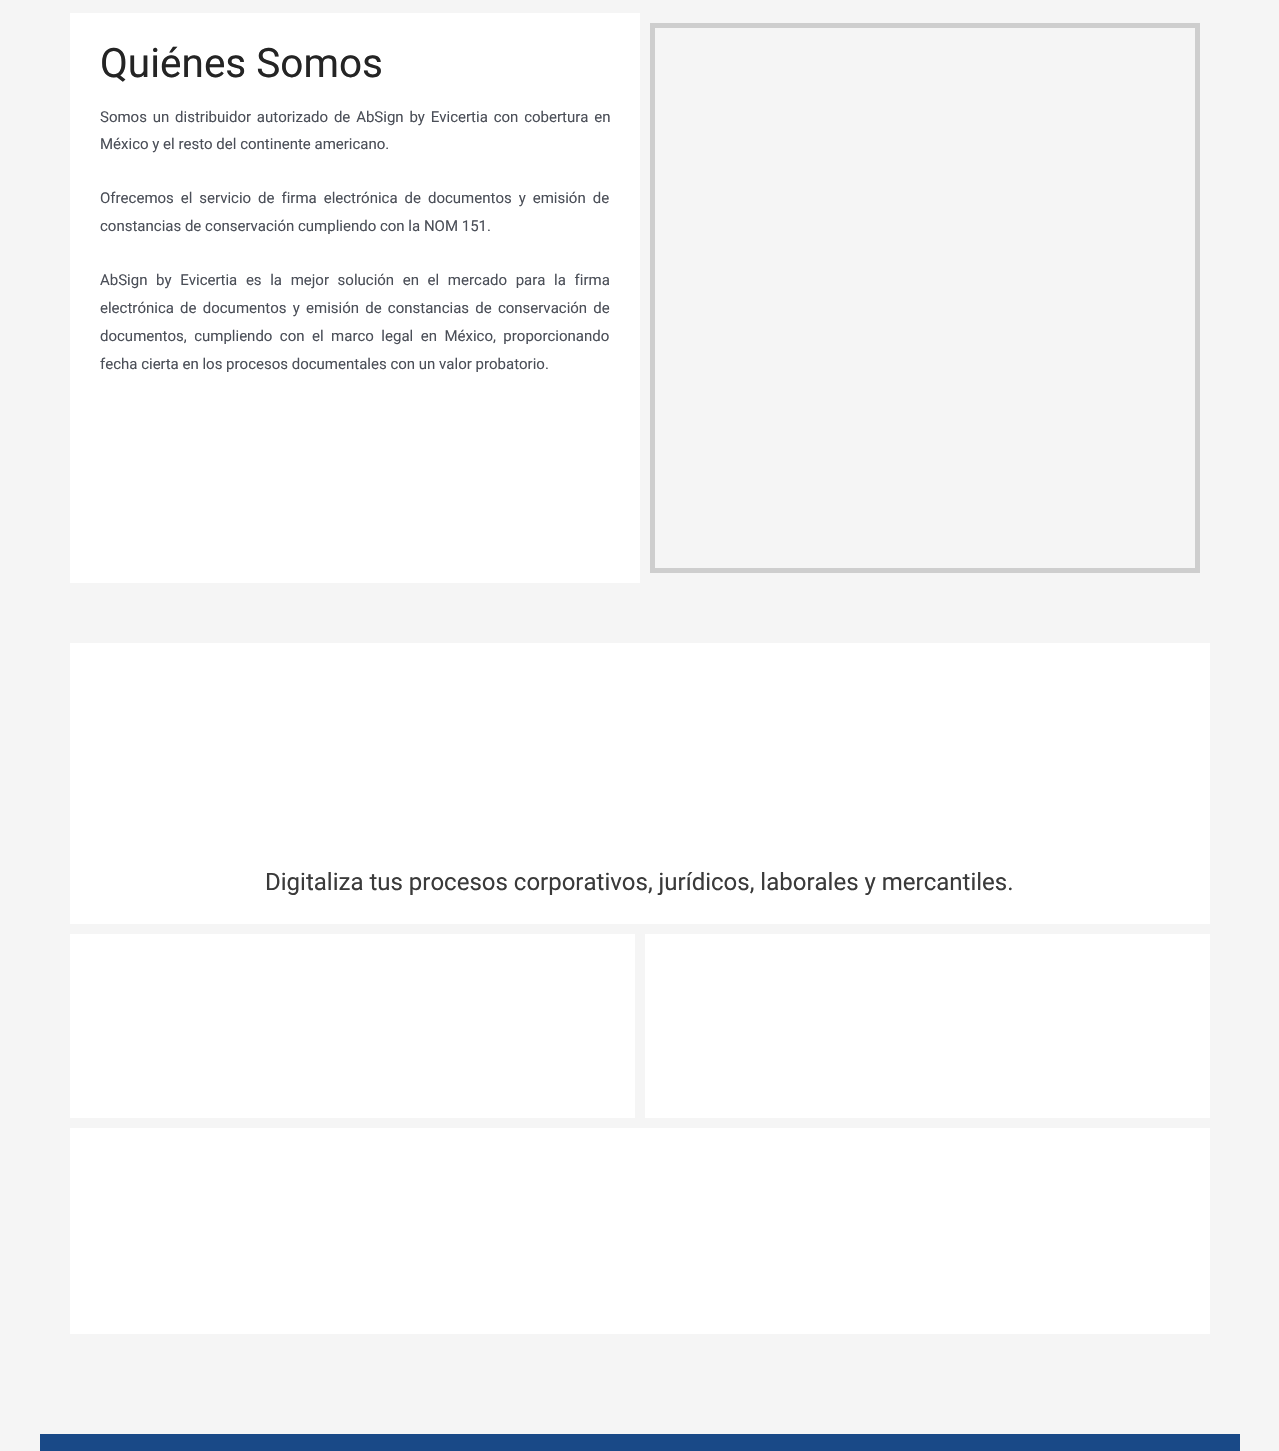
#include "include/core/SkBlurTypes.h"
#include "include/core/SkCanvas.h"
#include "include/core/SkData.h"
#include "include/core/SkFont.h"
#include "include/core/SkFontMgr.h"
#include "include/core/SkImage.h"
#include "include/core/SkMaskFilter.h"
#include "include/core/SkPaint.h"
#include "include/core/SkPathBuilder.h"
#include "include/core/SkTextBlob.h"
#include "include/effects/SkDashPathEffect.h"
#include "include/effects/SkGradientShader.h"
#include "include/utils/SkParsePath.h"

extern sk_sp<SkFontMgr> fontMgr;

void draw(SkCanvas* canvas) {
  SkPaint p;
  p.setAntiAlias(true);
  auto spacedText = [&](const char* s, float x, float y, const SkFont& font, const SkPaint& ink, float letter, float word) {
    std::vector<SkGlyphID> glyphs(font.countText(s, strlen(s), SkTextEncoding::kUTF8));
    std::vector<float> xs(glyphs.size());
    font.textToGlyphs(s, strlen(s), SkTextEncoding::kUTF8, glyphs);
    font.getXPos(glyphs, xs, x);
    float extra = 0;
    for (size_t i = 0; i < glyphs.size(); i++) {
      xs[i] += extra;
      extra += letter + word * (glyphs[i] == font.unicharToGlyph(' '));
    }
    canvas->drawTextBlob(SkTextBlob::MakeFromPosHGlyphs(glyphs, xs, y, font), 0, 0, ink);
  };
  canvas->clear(SkColorSetRGB(245, 245, 245));
  p.setColor(SK_ColorWHITE);
  canvas->drawRect(SkRect::MakeLTRB(70, 13, 640, 583), p);
  p.setStyle(SkPaint::kStroke_Style);
  p.setStrokeWidth(5);
  p.setColor(SkColorSetRGB(206, 206, 206));
  canvas->drawRect(SkRect::MakeLTRB(652.5f, 25.5f, 1197.5f, 570.5f), p);
  p.setStyle(SkPaint::kFill_Style);
  p.setColor(SK_ColorWHITE);
  canvas->drawRect(SkRect::MakeLTRB(70, 643, 1210, 924), p);
  canvas->drawRect(SkRect::MakeLTRB(70, 934, 635, 1118), p);
  canvas->drawRect(SkRect::MakeLTRB(645, 934, 1210, 1118), p);
  canvas->drawRect(SkRect::MakeLTRB(70, 1128, 1210, 1334), p);
  p.setColor(SkColorSetRGB(25, 73, 135));
  canvas->drawRect(SkRect::MakeLTRB(40, 1434, 1240, 1451), p);
  SkFont font1(fontMgr->matchFamilyStyle("Roboto", SkFontStyle::Normal()), 40.5f);
  font1.setSubpixel(true);
  p.setColor(SkColorSetRGB(36, 36, 36));
  canvas->drawString("Quiénes Somos", 100, 77, font1, p);
  SkFont font2(fontMgr->matchFamilyStyle("Roboto", SkFontStyle::Normal()), 15);
  font2.setSubpixel(true);
  p.setColor(SkColorSetRGB(75, 79, 88));
  spacedText("Somos un distribuidor autorizado de AbSign by Evicertia con cobertura en", 100, 122, font2, p, 0, 2.1f);
  canvas->drawString("México y el resto del continente americano.", 100, 149, font2, p);
  spacedText("Ofrecemos el servicio de firma electrónica de documentos y emisión de", 100, 203, font2, p, 0, 3.25f);
  canvas->drawString("constancias de conservación cumpliendo con la NOM 151.", 100, 231, font2, p);
  spacedText("AbSign by Evicertia es la mejor solución en el mercado para la firma", 100, 285, font2, p, 0, 4.9f);
  spacedText("electrónica de documentos y emisión de constancias de conservación de", 100, 313, font2, p, 0, 2.5f);
  spacedText("documentos, cumpliendo con el marco legal en México, proporcionando", 100, 341, font2, p, 0, 3.75f);
  canvas->drawString("fecha cierta en los procesos documentales con un valor probatorio.", 100, 369, font2, p);
  SkFont font3(fontMgr->matchFamilyStyle("Roboto", SkFontStyle::Normal()), 24);
  font3.setSubpixel(true);
  p.setColor(SkColorSetRGB(58, 58, 58));
  canvas->drawString("Digitaliza tus procesos corporativos, jurídicos, laborales y mercantiles.", 265, 890, font3, p);
}
